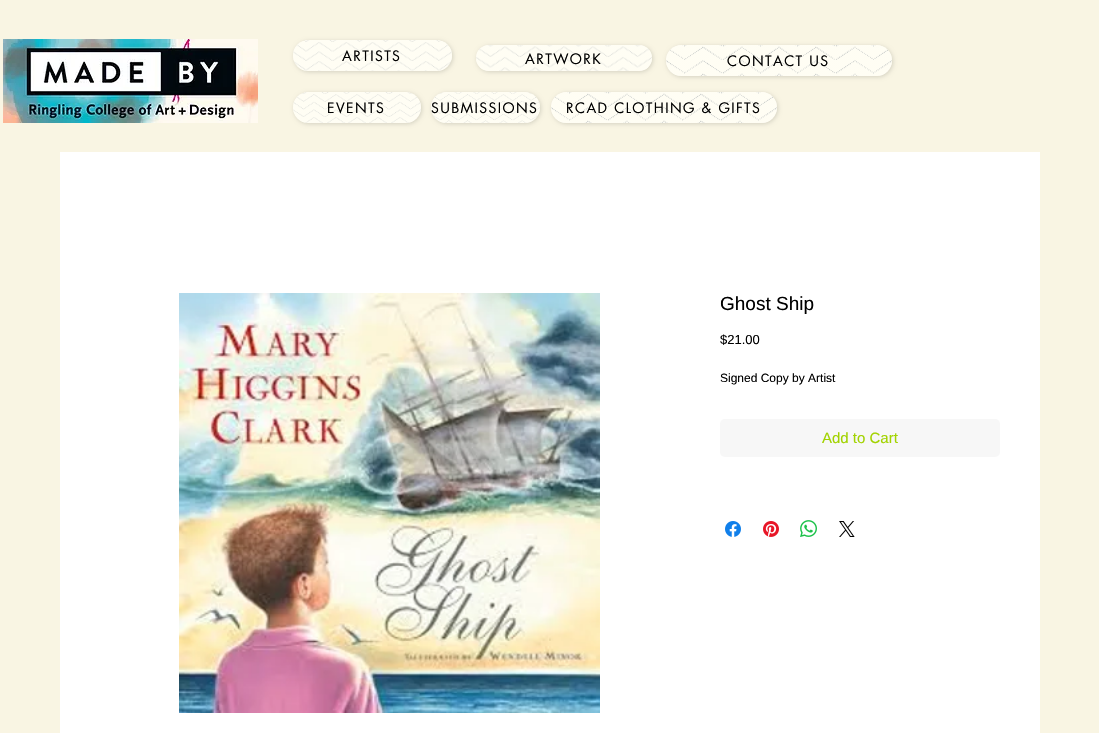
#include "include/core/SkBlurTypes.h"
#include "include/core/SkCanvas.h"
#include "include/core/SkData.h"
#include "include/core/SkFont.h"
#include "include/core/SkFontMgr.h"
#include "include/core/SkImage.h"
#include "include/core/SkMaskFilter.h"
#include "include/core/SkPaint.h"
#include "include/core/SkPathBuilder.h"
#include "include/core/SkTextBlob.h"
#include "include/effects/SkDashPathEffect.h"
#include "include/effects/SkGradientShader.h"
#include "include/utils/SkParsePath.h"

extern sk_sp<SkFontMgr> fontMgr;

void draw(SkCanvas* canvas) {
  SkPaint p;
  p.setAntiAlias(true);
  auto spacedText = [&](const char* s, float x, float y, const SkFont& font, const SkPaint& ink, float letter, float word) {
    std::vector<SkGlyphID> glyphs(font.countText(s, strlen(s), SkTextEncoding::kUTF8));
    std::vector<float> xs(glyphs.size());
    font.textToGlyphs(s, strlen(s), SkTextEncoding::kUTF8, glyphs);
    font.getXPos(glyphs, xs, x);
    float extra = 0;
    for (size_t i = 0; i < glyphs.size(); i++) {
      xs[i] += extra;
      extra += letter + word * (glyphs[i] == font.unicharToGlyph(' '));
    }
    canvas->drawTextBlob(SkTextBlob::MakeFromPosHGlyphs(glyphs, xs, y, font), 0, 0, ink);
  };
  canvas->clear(SkColorSetRGB(249, 245, 227));
  canvas->drawImageRect(SkImages::DeferredFromEncodedData(SkData::MakeFromFileName("images/1.png")), SkRect::MakeLTRB(3, 39, 258, 123), SkSamplingOptions());
  p.setColor(SkColorSetARGB(38, 0, 0, 0));
  p.setMaskFilter(SkMaskFilter::MakeBlur(kNormal_SkBlurStyle, 2));
  canvas->drawRoundRect(SkRect::MakeLTRB(294, 41, 453, 72), 15.5f, 15.5f, p);
  p.setMaskFilter(nullptr);
  p.setColor(SkColorSetRGB(255, 253, 244));
  canvas->drawRoundRect(SkRect::MakeLTRB(293, 40, 452, 71), 15.5f, 15.5f, p);
  canvas->drawImageRect(SkImages::DeferredFromEncodedData(SkData::MakeFromFileName("images/2.png")), SkRect::MakeLTRB(293, 40, 452, 71), SkSamplingOptions());
  p.setColor(SkColorSetARGB(38, 0, 0, 0));
  p.setMaskFilter(SkMaskFilter::MakeBlur(kNormal_SkBlurStyle, 2));
  canvas->drawRoundRect(SkRect::MakeLTRB(477, 46, 653, 72), 13, 13, p);
  p.setMaskFilter(nullptr);
  p.setColor(SkColorSetRGB(255, 253, 244));
  canvas->drawRoundRect(SkRect::MakeLTRB(476, 45, 652, 71), 13, 13, p);
  canvas->drawImageRect(SkImages::DeferredFromEncodedData(SkData::MakeFromFileName("images/3.png")), SkRect::MakeLTRB(476, 45, 652, 71), SkSamplingOptions());
  p.setColor(SkColorSetARGB(38, 0, 0, 0));
  p.setMaskFilter(SkMaskFilter::MakeBlur(kNormal_SkBlurStyle, 2));
  canvas->drawRoundRect(SkRect::MakeLTRB(667, 46, 893, 77), 15.5f, 15.5f, p);
  p.setMaskFilter(nullptr);
  p.setColor(SkColorSetRGB(255, 253, 244));
  canvas->drawRoundRect(SkRect::MakeLTRB(666, 45, 892, 76), 15.5f, 15.5f, p);
  canvas->drawImageRect(SkImages::DeferredFromEncodedData(SkData::MakeFromFileName("images/4.png")), SkRect::MakeLTRB(666, 45, 892, 76), SkSamplingOptions());
  p.setColor(SkColorSetARGB(38, 0, 0, 0));
  p.setMaskFilter(SkMaskFilter::MakeBlur(kNormal_SkBlurStyle, 2));
  canvas->drawRoundRect(SkRect::MakeLTRB(294, 93, 422, 124), 15.5f, 15.5f, p);
  p.setMaskFilter(nullptr);
  p.setColor(SkColorSetRGB(255, 253, 244));
  canvas->drawRoundRect(SkRect::MakeLTRB(293, 92, 421, 123), 15.5f, 15.5f, p);
  canvas->drawImageRect(SkImages::DeferredFromEncodedData(SkData::MakeFromFileName("images/5.png")), SkRect::MakeLTRB(293, 92, 421, 123), SkSamplingOptions());
  p.setColor(SkColorSetARGB(38, 0, 0, 0));
  p.setMaskFilter(SkMaskFilter::MakeBlur(kNormal_SkBlurStyle, 2));
  canvas->drawRoundRect(SkRect::MakeLTRB(432, 93, 541, 124), 15.5f, 15.5f, p);
  p.setMaskFilter(nullptr);
  p.setColor(SkColorSetRGB(255, 253, 244));
  canvas->drawRoundRect(SkRect::MakeLTRB(431, 92, 540, 123), 15.5f, 15.5f, p);
  canvas->drawImageRect(SkImages::DeferredFromEncodedData(SkData::MakeFromFileName("images/6.png")), SkRect::MakeLTRB(431, 92, 540, 123), SkSamplingOptions());
  p.setColor(SkColorSetARGB(38, 0, 0, 0));
  p.setMaskFilter(SkMaskFilter::MakeBlur(kNormal_SkBlurStyle, 2));
  canvas->drawRoundRect(SkRect::MakeLTRB(552, 93, 778, 124), 15.5f, 15.5f, p);
  p.setMaskFilter(nullptr);
  p.setColor(SkColorSetRGB(255, 253, 244));
  canvas->drawRoundRect(SkRect::MakeLTRB(551, 92, 777, 123), 15.5f, 15.5f, p);
  canvas->drawImageRect(SkImages::DeferredFromEncodedData(SkData::MakeFromFileName("images/7.png")), SkRect::MakeLTRB(551, 92, 777, 123), SkSamplingOptions());
  p.setColor(SK_ColorWHITE);
  canvas->drawRect(SkRect::MakeLTRB(60, 152, 1040, 733), p);
  canvas->drawImageRect(SkImages::DeferredFromEncodedData(SkData::MakeFromFileName("images/8.png")), SkRect::MakeLTRB(179, 293, 600, 713), SkSamplingOptions());
  p.setColor(SkColorSetRGB(247, 247, 247));
  canvas->drawRoundRect(SkRect::MakeLTRB(720, 419, 1000, 457), 5, 5, p);
  canvas->drawImageRect(SkImages::DeferredFromEncodedData(SkData::MakeFromFileName("images/9.png")), SkRect::MakeLTRB(725, 521, 741, 537), SkSamplingOptions());
  canvas->drawImageRect(SkImages::DeferredFromEncodedData(SkData::MakeFromFileName("images/10.png")), SkRect::MakeLTRB(763, 521, 779, 537), SkSamplingOptions());
  canvas->drawImageRect(SkImages::DeferredFromEncodedData(SkData::MakeFromFileName("images/11.png")), SkRect::MakeLTRB(800, 520, 817, 537), SkSamplingOptions());
  canvas->drawImageRect(SkImages::DeferredFromEncodedData(SkData::MakeFromFileName("images/12.png")), SkRect::MakeLTRB(839, 521, 855, 537), SkSamplingOptions());
  SkFont font1(fontMgr->matchFamilyStyle("futura", SkFontStyle::Normal()), 14);
  font1.setSubpixel(true);
  p.setColor(SK_ColorBLACK);
  spacedText("ARTISTS", 342, 61, font1, p, 1.4f, 0);
  spacedText("ARTWORK", 525, 64, font1, p, 1.4f, 0);
  spacedText("CONTACT US", 727, 66, font1, p, 1.4f, 0);
  spacedText("EVENTS", 327, 113, font1, p, 1.4f, 0);
  spacedText("SUBMISSIONS", 431, 113, font1, p, 1.4f, 0);
  spacedText("RCAD CLOTHING & GIFTS", 566, 113, font1, p, 1.4f, 0);
  SkFont font2(fontMgr->matchFamilyStyle("Liberation Sans", SkFontStyle::Normal()), 19);
  font2.setSubpixel(true);
  canvas->drawString("Ghost Ship", 720, 310, font2, p);
  SkFont font3(fontMgr->matchFamilyStyle("Liberation Sans", SkFontStyle::Normal()), 13);
  font3.setSubpixel(true);
  canvas->drawString("$21.00", 720, 344, font3, p);
  SkFont font4(fontMgr->matchFamilyStyle("Liberation Sans", SkFontStyle::Normal()), 12);
  font4.setSubpixel(true);
  canvas->drawString("Signed Copy by Artist", 720, 382, font4, p);
  SkFont font5(fontMgr->matchFamilyStyle("Liberation Sans", SkFontStyle::Normal()), 15);
  font5.setSubpixel(true);
  p.setColor(SkColorSetRGB(162, 211, 0));
  canvas->drawString("Add to Cart", 822, 443, font5, p);
}
